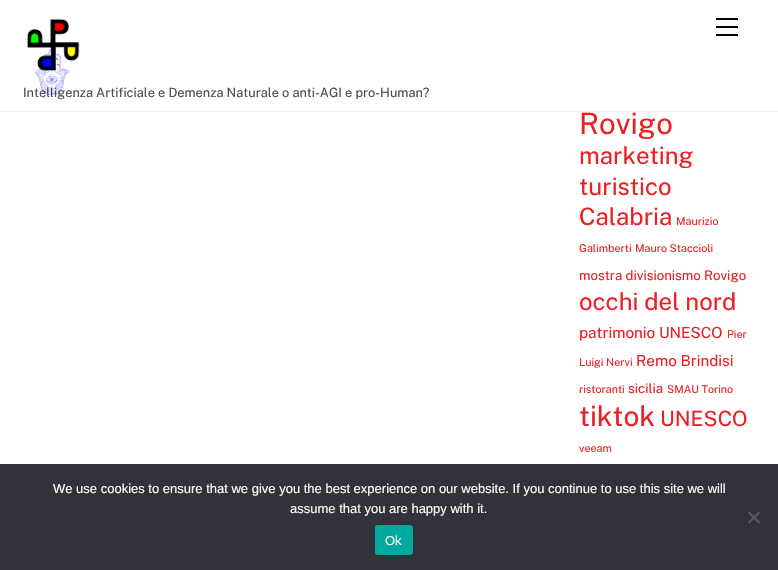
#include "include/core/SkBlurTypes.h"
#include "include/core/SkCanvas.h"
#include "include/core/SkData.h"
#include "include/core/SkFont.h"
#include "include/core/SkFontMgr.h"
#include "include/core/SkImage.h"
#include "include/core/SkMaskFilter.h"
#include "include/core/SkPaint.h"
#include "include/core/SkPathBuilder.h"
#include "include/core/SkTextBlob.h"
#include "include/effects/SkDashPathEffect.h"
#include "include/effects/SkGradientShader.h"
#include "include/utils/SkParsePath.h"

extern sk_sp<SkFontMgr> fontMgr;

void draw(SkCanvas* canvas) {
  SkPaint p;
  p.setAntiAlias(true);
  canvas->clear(SK_ColorWHITE);
  p.setColor(SkColorSetRGB(242, 242, 242));
  canvas->drawRect(SkRect::MakeLTRB(0, 111, 778, 112), p);
  p.setColor(SK_ColorBLACK);
  canvas->drawRect(SkRect::MakeLTRB(716, 34, 738, 36), p);
  canvas->drawRect(SkRect::MakeLTRB(716, 18, 738, 20), p);
  canvas->drawRect(SkRect::MakeLTRB(716, 26, 738, 28), p);
  canvas->drawImageRect(SkImages::DeferredFromEncodedData(SkData::MakeFromFileName("images/2.png")), SkRect::MakeLTRB(26, 18, 80, 71), SkSamplingOptions());
  p.setColor(SkColorSetRGB(50, 50, 58));
  canvas->drawRect(SkRect::MakeLTRB(0, 464, 778, 570), p);
  p.setColor(SkColorSetRGB(89, 89, 93));
  canvas->drawPath(SkPathBuilder().moveTo(758.5f, 511.5f).lineTo(760, 513).lineTo(749.5f, 523.5f).lineTo(748, 522).close().detach(), p);
  canvas->drawPath(SkPathBuilder().moveTo(748, 513).lineTo(749.5f, 511.5f).lineTo(760, 522).lineTo(758.5f, 523.5f).close().detach(), p);
  p.setColor(SkColorSetRGB(0, 169, 157));
  canvas->drawRoundRect(SkRect::MakeLTRB(375, 525, 413, 555), 3, 3, p);
  SkFont font1(fontMgr->matchFamilyStyle("Public Sans", SkFontStyle::Normal()), 12.8f);
  font1.setSubpixel(true);
  p.setColor(SkColorSetRGB(77, 77, 77));
  canvas->drawString("Intelligenza Artificiale e Demenza Naturale o anti-AGI e pro-Human?", 23, 97, font1, p);
  canvas->drawImageRect(SkImages::DeferredFromEncodedData(SkData::MakeFromFileName("images/1.png")), SkRect::MakeLTRB(34, 49, 70, 95), SkSamplingOptions());
  SkFont font2(fontMgr->matchFamilyStyle("Public Sans", SkFontStyle::Normal()), 29.5f);
  font2.setSubpixel(true);
  p.setColor(SkColorSetRGB(237, 30, 36));
  canvas->drawString("Rovigo", 579, 134, font2, p);
  SkFont font3(fontMgr->matchFamilyStyle("Public Sans", SkFontStyle::Normal()), 24);
  font3.setSubpixel(true);
  canvas->drawString("marketing", 579, 164, font3, p);
  canvas->drawString("turistico", 579, 195, font3, p);
  canvas->drawString("Calabria", 579, 225, font3, p);
  SkFont font4(fontMgr->matchFamilyStyle("Public Sans", SkFontStyle::Normal()), 10.75f);
  font4.setSubpixel(true);
  canvas->drawString("Maurizio", 676, 225, font4, p);
  canvas->drawString("Galimberti", 579, 252, font4, p);
  canvas->drawString("Mauro Staccioli", 635, 252, font4, p);
  SkFont font5(fontMgr->matchFamilyStyle("Public Sans", SkFontStyle::Normal()), 13.25f);
  font5.setSubpixel(true);
  canvas->drawString("mostra divisionismo Rovigo", 579, 280, font5, p);
  canvas->drawString("occhi del nord", 579, 310, font3, p);
  SkFont font6(fontMgr->matchFamilyStyle("Public Sans", SkFontStyle::Normal()), 15.25f);
  font6.setSubpixel(true);
  canvas->drawString("patrimonio UNESCO", 579, 338, font6, p);
  canvas->drawString("Pier", 727, 338, font4, p);
  canvas->drawString("Luigi Nervi", 579, 366, font4, p);
  canvas->drawString("Remo Brindisi", 636, 366, font6, p);
  canvas->drawString("ristoranti", 579, 393, font4, p);
  canvas->drawString("sicilia", 628, 393, font5, p);
  canvas->drawString("SMAU Torino", 667, 393, font4, p);
  SkFont font7(fontMgr->matchFamilyStyle("Public Sans", SkFontStyle::Normal()), 28);
  font7.setSubpixel(true);
  canvas->drawString("tiktok", 579, 426, font7, p);
  SkFont font8(fontMgr->matchFamilyStyle("Public Sans", SkFontStyle::Normal()), 21);
  font8.setSubpixel(true);
  canvas->drawString("UNESCO", 660, 426, font8, p);
  canvas->drawString("veeam", 579, 452, font4, p);
  SkFont font9(fontMgr->matchFamilyStyle("Liberation Sans", SkFontStyle::Normal()), 13);
  font9.setSubpixel(true);
  p.setColor(SK_ColorWHITE);
  canvas->drawString("We use cookies to ensure that we give you the best experience on our website. If you continue to use this site we will", 53, 493, font9, p);
  canvas->drawString("assume that you are happy with it.", 290, 513, font9, p);
  canvas->drawString("Ok", 385, 545, font9, p);
}
